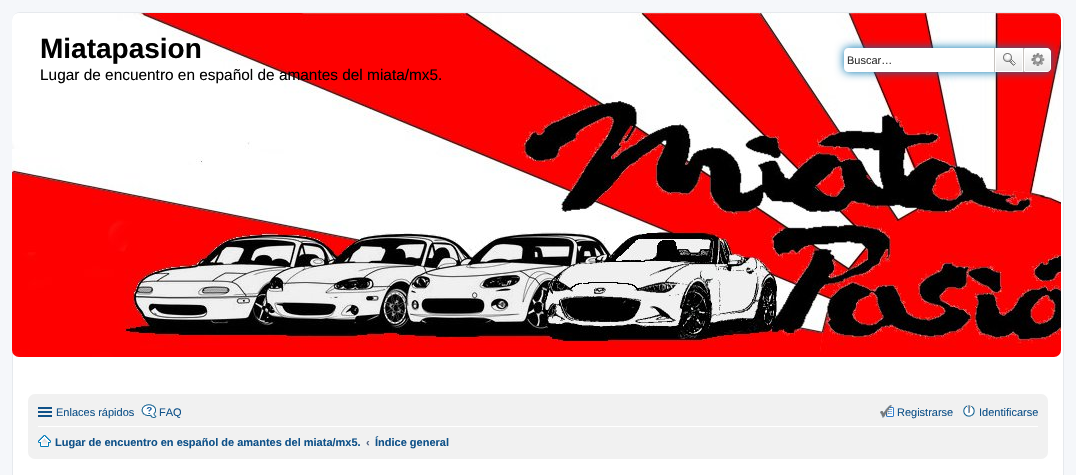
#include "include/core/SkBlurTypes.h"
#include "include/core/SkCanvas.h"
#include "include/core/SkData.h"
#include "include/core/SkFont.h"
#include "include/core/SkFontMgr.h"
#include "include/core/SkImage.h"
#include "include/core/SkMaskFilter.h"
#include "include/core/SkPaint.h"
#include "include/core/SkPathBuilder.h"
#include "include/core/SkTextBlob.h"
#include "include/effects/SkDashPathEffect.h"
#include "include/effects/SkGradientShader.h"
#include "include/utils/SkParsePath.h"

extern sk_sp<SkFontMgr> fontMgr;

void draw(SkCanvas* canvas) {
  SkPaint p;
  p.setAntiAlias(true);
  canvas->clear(SkColorSetRGB(245, 247, 250));
  p.setColor(SK_ColorWHITE);
  canvas->drawRoundRect(SkRect::MakeLTRB(12.5f, 12.5f, 1063.5f, 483.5f), 7.5f, 7.5f, p);
  p.setStyle(SkPaint::kStroke_Style);
  p.setStrokeWidth(1);
  p.setColor(SkColorSetRGB(230, 233, 237));
  canvas->drawRoundRect(SkRect::MakeLTRB(12.5f, 12.5f, 1063.5f, 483.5f), 7.5f, 7.5f, p);
  canvas->drawImageRect(SkImages::DeferredFromEncodedData(SkData::MakeFromFileName("images/1.png")), SkRect::MakeLTRB(12, 13, 1061, 357), SkSamplingOptions());
  p.setStyle(SkPaint::kFill_Style);
  p.setColor(SkColorSetRGB(0, 117, 176));
  p.setMaskFilter(SkMaskFilter::MakeBlur(kNormal_SkBlurStyle, 5));
  canvas->drawRoundRect(SkRect::MakeLTRB(844, 48, 1051, 72), 4, 4, p);
  p.setMaskFilter(nullptr);
  p.setColor(SK_ColorWHITE);
  canvas->drawPath(SkPathBuilder().moveTo(848, 48).lineTo(994, 48).lineTo(994, 72).lineTo(848, 72).cubicTo(846, 72, 844, 70, 844, 68).lineTo(844, 52).cubicTo(844, 50, 846, 48, 848, 48).close().detach(), p);
  {
    const SkColor colors[] = {SK_ColorWHITE, SkColorSetRGB(233, 233, 233)};
    const float stops[] = {0, 1};
    const SkPoint ends[] = {{1009, 48}, {1009, 72}};
    p.setShader(SkGradientShader::MakeLinear(ends, colors, stops, 2, SkTileMode::kClamp));
    p.setAlpha(255);
  }
  canvas->drawRect(SkRect::MakeLTRB(996, 49, 1022, 71), p);
  p.setStyle(SkPaint::kStroke_Style);
  p.setShader(nullptr);
  p.setColor(SK_ColorWHITE);
  canvas->drawRect(SkRect::MakeLTRB(995.5f, 48.5f, 1022.5f, 71.5f), p);
  p.setStyle(SkPaint::kFill_Style);
  p.setColor(SkColorSetRGB(199, 195, 191));
  canvas->drawRect(SkRect::MakeLTRB(1023, 48, 1024, 72), p);
  canvas->drawRect(SkRect::MakeLTRB(994, 48, 995, 72), p);
  canvas->drawImageRect(SkImages::DeferredFromEncodedData(SkData::MakeFromFileName("images/2.png")), SkRect::MakeLTRB(1003, 53, 1016, 66), SkSamplingOptions());
  {
    const SkColor colors[] = {SK_ColorWHITE, SkColorSetRGB(233, 233, 233)};
    const float stops[] = {0, 1};
    const SkPoint ends[] = {{1038, 48}, {1038, 72}};
    p.setShader(SkGradientShader::MakeLinear(ends, colors, stops, 2, SkTileMode::kClamp));
    p.setAlpha(255);
  }
  canvas->drawPath(SkPathBuilder().moveTo(1024.5f, 48.5f).lineTo(1047, 48.5f).cubicTo(1049, 48.5f, 1050.5f, 50, 1050.5f, 52).lineTo(1050.5f, 68).cubicTo(1050.5f, 70, 1049, 71.5f, 1047, 71.5f).lineTo(1024.5f, 71.5f).close().detach(), p);
  p.setStyle(SkPaint::kStroke_Style);
  p.setShader(nullptr);
  p.setColor(SK_ColorWHITE);
  canvas->drawPath(SkPathBuilder().moveTo(1024.5f, 48.5f).lineTo(1047, 48.5f).cubicTo(1049, 48.5f, 1050.5f, 50, 1050.5f, 52).lineTo(1050.5f, 68).cubicTo(1050.5f, 70, 1049, 71.5f, 1047, 71.5f).lineTo(1024.5f, 71.5f).close().detach(), p);
  canvas->drawImageRect(SkImages::DeferredFromEncodedData(SkData::MakeFromFileName("images/3.png")), SkRect::MakeLTRB(1031, 53, 1045, 66), SkSamplingOptions());
  p.setStyle(SkPaint::kFill_Style);
  p.setColor(SkColorSetRGB(241, 241, 241));
  canvas->drawRoundRect(SkRect::MakeLTRB(28, 394, 1048, 459), 7, 7, p);
  p.setColor(SkColorSetRGB(16, 82, 137));
  canvas->drawRect(SkRect::MakeLTRB(38, 407, 52, 409), p);
  canvas->drawRect(SkRect::MakeLTRB(38, 411, 52, 413), p);
  canvas->drawRect(SkRect::MakeLTRB(38, 415, 52, 417), p);
  canvas->drawImageRect(SkImages::DeferredFromEncodedData(SkData::MakeFromFileName("images/4.png")), SkRect::MakeLTRB(141, 404, 157, 418), SkSamplingOptions());
  canvas->drawImageRect(SkImages::DeferredFromEncodedData(SkData::MakeFromFileName("images/5.png")), SkRect::MakeLTRB(880, 405, 894, 418), SkSamplingOptions());
  canvas->drawImageRect(SkImages::DeferredFromEncodedData(SkData::MakeFromFileName("images/6.png")), SkRect::MakeLTRB(963, 405, 975, 417), SkSamplingOptions());
  p.setColor(SK_ColorWHITE);
  canvas->drawRect(SkRect::MakeLTRB(38, 426, 1038, 427), p);
  canvas->drawImageRect(SkImages::DeferredFromEncodedData(SkData::MakeFromFileName("images/7.png")), SkRect::MakeLTRB(38, 435, 51, 447), SkSamplingOptions());
  SkFont font1(fontMgr->matchFamilyStyle("Liberation Sans", SkFontStyle::Bold()), 28);
  font1.setSubpixel(true);
  p.setColor(SK_ColorBLACK);
  canvas->drawString("Miatapasion", 40, 58, font1, p);
  SkFont font2(fontMgr->matchFamilyStyle("Liberation Sans", SkFontStyle::Normal()), 15.4f);
  font2.setSubpixel(true);
  canvas->drawString("Lugar de encuentro en español de amantes del miata/mx5.", 40, 80, font2, p);
  SkFont font3(fontMgr->matchFamilyStyle("Liberation Sans", SkFontStyle::Normal()), 11);
  font3.setSubpixel(true);
  p.setColor(SkColorSetRGB(51, 51, 51));
  canvas->drawString("Buscar…", 847, 64, font3, p);
  p.setColor(SkColorSetRGB(16, 82, 137));
  canvas->drawString("Enlaces rápidos", 56, 416, font3, p);
  canvas->drawString("FAQ", 159, 416, font3, p);
  canvas->drawString("Registrarse", 897, 416, font3, p);
  canvas->drawString("Identificarse", 979, 416, font3, p);
  SkFont font4(fontMgr->matchFamilyStyle("Liberation Sans", SkFontStyle::Bold()), 11);
  font4.setSubpixel(true);
  canvas->drawString("Lugar de encuentro en español de amantes del miata/mx5.", 55, 446, font4, p);
  p.setColor(SkColorSetRGB(83, 100, 130));
  canvas->drawString("‹", 366, 446, font4, p);
  p.setColor(SkColorSetRGB(16, 82, 137));
  canvas->drawString("Índice general", 375, 446, font4, p);
}
